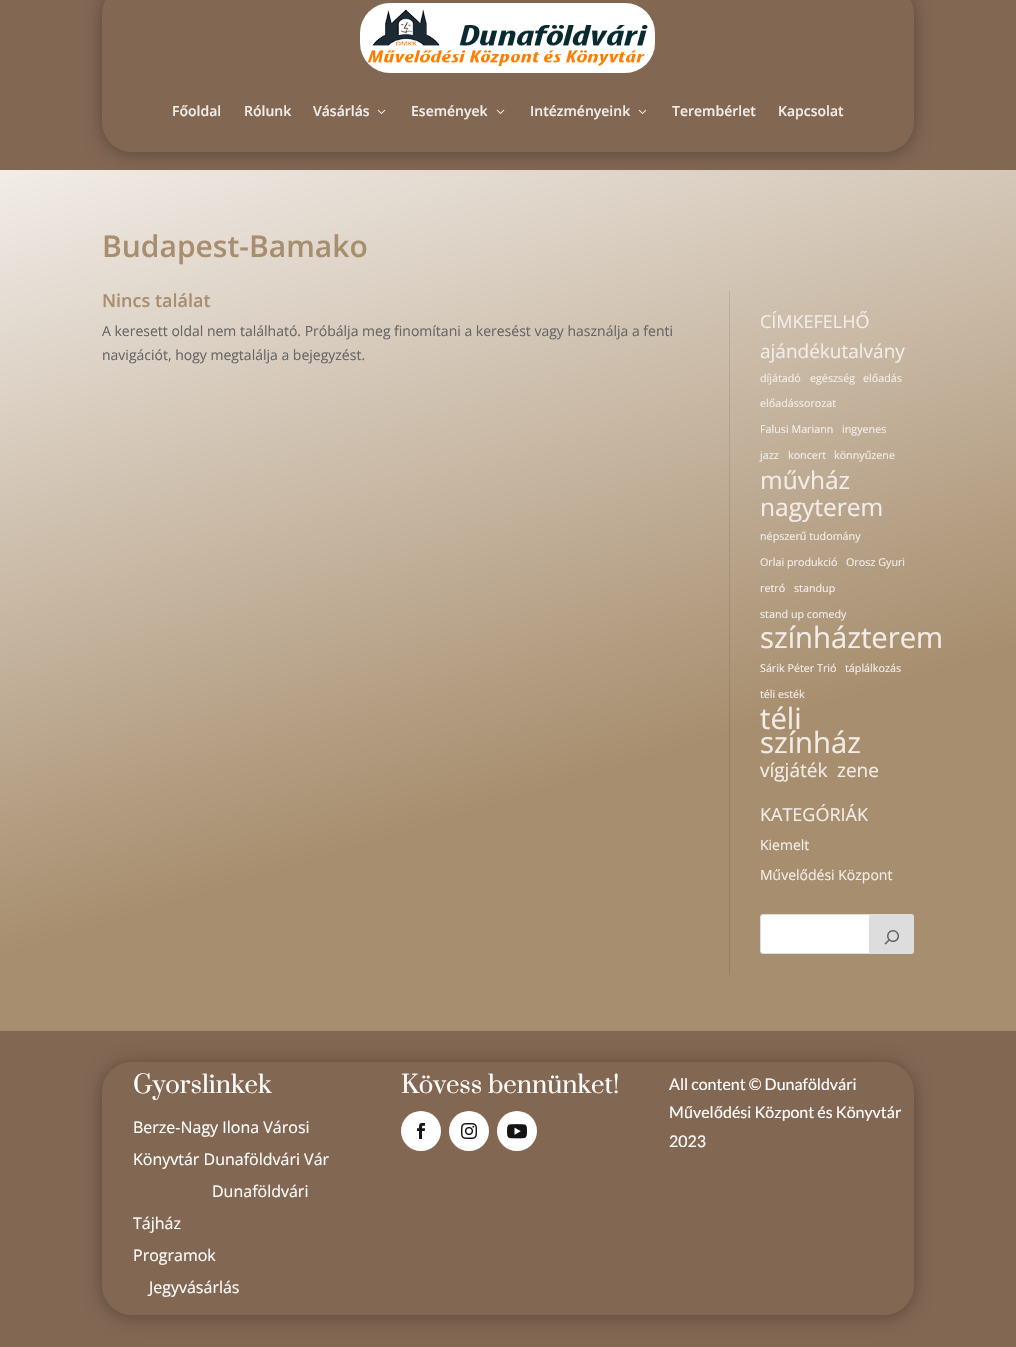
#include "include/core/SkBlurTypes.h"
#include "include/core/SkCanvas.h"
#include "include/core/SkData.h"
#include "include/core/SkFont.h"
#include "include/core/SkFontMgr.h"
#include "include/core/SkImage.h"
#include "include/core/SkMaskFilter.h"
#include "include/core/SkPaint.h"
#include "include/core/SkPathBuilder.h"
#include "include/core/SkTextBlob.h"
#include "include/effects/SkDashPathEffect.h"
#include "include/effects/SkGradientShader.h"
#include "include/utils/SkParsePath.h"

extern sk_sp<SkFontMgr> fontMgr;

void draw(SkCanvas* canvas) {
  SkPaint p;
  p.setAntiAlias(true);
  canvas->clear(SK_ColorWHITE);
  p.setColor(SkColorSetRGB(130, 103, 83));
  canvas->drawRect(SkRect::MakeLTRB(0, 0, 1016, 170), p);
  {
    const SkColor colors[] = {SkColorSetRGB(242, 237, 232), SkColorSetRGB(167, 142, 110)};
    const float stops[] = {0, 0.67f};
    const SkPoint ends[] = {{344, 65}, {672, 1141}};
    p.setShader(SkGradientShader::MakeLinear(ends, colors, stops, 2, SkTileMode::kClamp));
    p.setAlpha(255);
  }
  canvas->drawRect(SkRect::MakeLTRB(0, 170, 1016, 1031), p);
  p.setShader(nullptr);
  p.setColor(SkColorSetARGB(77, 0, 0, 0));
  p.setMaskFilter(SkMaskFilter::MakeBlur(kNormal_SkBlurStyle, 9));
  canvas->drawRoundRect(SkRect::MakeLTRB(102, -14, 914, 154), 30, 30, p);
  p.setMaskFilter(nullptr);
  p.setColor(SkColorSetRGB(130, 103, 83));
  canvas->drawRoundRect(SkRect::MakeLTRB(102, -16, 914, 152), 30, 30, p);
  canvas->drawImageRect(SkImages::DeferredFromEncodedData(SkData::MakeFromFileName("images/1.png")), SkRect::MakeLTRB(360, 3, 655, 73), SkSamplingOptions());
  canvas->drawImageRect(SkImages::DeferredFromEncodedData(SkData::MakeFromFileName("images/2.png")), SkRect::MakeLTRB(377, 109, 386, 114), SkSamplingOptions());
  canvas->drawImageRect(SkImages::DeferredFromEncodedData(SkData::MakeFromFileName("images/2.png")), SkRect::MakeLTRB(496, 109, 505, 114), SkSamplingOptions());
  canvas->drawImageRect(SkImages::DeferredFromEncodedData(SkData::MakeFromFileName("images/2.png")), SkRect::MakeLTRB(638, 109, 647, 114), SkSamplingOptions());
  {
    const SkColor colors[] = {SkColorSetRGB(218, 213, 209), SkColorSetRGB(150, 128, 99)};
    const float stops[] = {0, 0.67f};
    const SkPoint ends[] = {{344, 65}, {672, 1141}};
    p.setShader(SkGradientShader::MakeLinear(ends, colors, stops, 2, SkTileMode::kClamp));
    p.setAlpha(255);
  }
  canvas->drawRect(SkRect::MakeLTRB(729, 291, 730, 975), p);
  p.setShader(nullptr);
  p.setColor(SK_ColorWHITE);
  canvas->drawRoundRect(SkRect::MakeLTRB(760.5f, 914.5f, 913.5f, 953.5f), 2.5f, 2.5f, p);
  p.setStyle(SkPaint::kStroke_Style);
  p.setStrokeWidth(1);
  p.setColor(SkColorSetRGB(221, 221, 221));
  canvas->drawRoundRect(SkRect::MakeLTRB(760.5f, 914.5f, 913.5f, 953.5f), 2.5f, 2.5f, p);
  p.setStyle(SkPaint::kFill_Style);
  canvas->drawPath(SkPathBuilder().moveTo(869.5f, 914.5f).lineTo(911, 914.5f).cubicTo(912.5f, 914.5f, 913.5f, 915.5f, 913.5f, 917).lineTo(913.5f, 951).cubicTo(913.5f, 952.5f, 912.5f, 953.5f, 911, 953.5f).lineTo(869.5f, 953.5f).close().detach(), p);
  p.setStyle(SkPaint::kStroke_Style);
  canvas->drawPath(SkPathBuilder().moveTo(869.5f, 914.5f).lineTo(911, 914.5f).cubicTo(912.5f, 914.5f, 913.5f, 915.5f, 913.5f, 917).lineTo(913.5f, 951).cubicTo(913.5f, 952.5f, 912.5f, 953.5f, 911, 953.5f).lineTo(869.5f, 953.5f).close().detach(), p);
  canvas->drawImageRect(SkImages::DeferredFromEncodedData(SkData::MakeFromFileName("images/3.png")), SkRect::MakeLTRB(884, 930, 900, 945), SkSamplingOptions());
  p.setStyle(SkPaint::kFill_Style);
  p.setColor(SkColorSetRGB(130, 103, 83));
  canvas->drawRect(SkRect::MakeLTRB(0, 1031, 1016, 1347), p);
  canvas->save();
  canvas->clipPath(SkPathBuilder(SkPathFillType::kEvenOdd).moveTo(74, 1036).lineTo(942, 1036).lineTo(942, 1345).lineTo(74, 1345).close().moveTo(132, 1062).lineTo(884, 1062).cubicTo(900.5f, 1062, 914, 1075.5f, 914, 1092).lineTo(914, 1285).cubicTo(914, 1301.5f, 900.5f, 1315, 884, 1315).lineTo(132, 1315).cubicTo(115.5f, 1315, 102, 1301.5f, 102, 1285).lineTo(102, 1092).cubicTo(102, 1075.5f, 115.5f, 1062, 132, 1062).close().detach(), true);
  p.setColor(SkColorSetARGB(77, 0, 0, 0));
  p.setMaskFilter(SkMaskFilter::MakeBlur(kNormal_SkBlurStyle, 9));
  canvas->drawRoundRect(SkRect::MakeLTRB(102, 1064, 914, 1317), 30, 30, p);
  p.setMaskFilter(nullptr);
  canvas->restore();
  p.setColor(SK_ColorWHITE);
  canvas->drawCircle(421, 1131, 20, p);
  canvas->drawImageRect(SkImages::DeferredFromEncodedData(SkData::MakeFromFileName("images/4.png")), SkRect::MakeLTRB(417, 1123, 425, 1139), SkSamplingOptions());
  canvas->drawCircle(469, 1131, 20, p);
  canvas->drawImageRect(SkImages::DeferredFromEncodedData(SkData::MakeFromFileName("images/5.png")), SkRect::MakeLTRB(461, 1123, 477, 1139), SkSamplingOptions());
  canvas->drawCircle(517, 1131, 20, p);
  canvas->drawImageRect(SkImages::DeferredFromEncodedData(SkData::MakeFromFileName("images/6.png")), SkRect::MakeLTRB(507, 1124, 527, 1139), SkSamplingOptions());
  SkFont font1(fontMgr->matchFamilyStyle("Open Sans", SkFontStyle(600, SkFontStyle::kNormal_Width, SkFontStyle::kUpright_Slant)), 14);
  font1.setSubpixel(true);
  p.setColor(SkColorSetRGB(242, 237, 232));
  canvas->drawString("Főoldal", 172, 116, font1, p);
  canvas->drawString("Rólunk", 244, 116, font1, p);
  canvas->drawString("Vásárlás", 313, 116, font1, p);
  canvas->drawString("Események", 411, 116, font1, p);
  canvas->drawString("Intézményeink", 530, 116, font1, p);
  canvas->drawString("Terembérlet", 672, 116, font1, p);
  canvas->drawString("Kapcsolat", 778, 116, font1, p);
  SkFont font2(fontMgr->matchFamilyStyle("Open Sans", SkFontStyle(600, SkFontStyle::kNormal_Width, SkFontStyle::kUpright_Slant)), 30);
  font2.setSubpixel(true);
  p.setColor(SkColorSetRGB(167, 142, 110));
  canvas->drawString("Budapest-Bamako", 102, 257, font2, p);
  SkFont font3(fontMgr->matchFamilyStyle("Open Sans", SkFontStyle(600, SkFontStyle::kNormal_Width, SkFontStyle::kUpright_Slant)), 18);
  font3.setSubpixel(true);
  canvas->drawString("Nincs találat", 102, 307, font3, p);
  SkFont font4(fontMgr->matchFamilyStyle("Open Sans", SkFontStyle::Normal()), 14);
  font4.setSubpixel(true);
  p.setColor(SkColorSetRGB(102, 102, 102));
  canvas->drawString("A keresett oldal nem található. Próbálja meg finomítani a keresést vagy használja a fenti", 102, 336, font4, p);
  canvas->drawString("navigációt, hogy megtalálja a bejegyzést.", 102, 360, font4, p);
  SkFont font5(fontMgr->matchFamilyStyle("Open Sans", SkFontStyle::Normal()), 18);
  font5.setSubpixel(true);
  p.setColor(SkColorSetRGB(242, 237, 232));
  canvas->drawString("CÍMKEFELHŐ", 760, 328, font5, p);
  SkFont font6(fontMgr->matchFamilyStyle("Open Sans", SkFontStyle::Normal()), 19);
  font6.setSubpixel(true);
  canvas->drawString("ajándékutalvány", 760, 358, font6, p);
  SkFont font7(fontMgr->matchFamilyStyle("Open Sans", SkFontStyle::Normal()), 10.75f);
  font7.setSubpixel(true);
  canvas->drawString("díjátadó", 760, 382, font7, p);
  canvas->drawString("egészség", 810, 382, font7, p);
  canvas->drawString("előadás", 863, 382, font7, p);
  canvas->drawString("előadássorozat", 760, 407, font7, p);
  canvas->drawString("Falusi Mariann", 760, 433, font7, p);
  canvas->drawString("ingyenes", 842, 433, font7, p);
  canvas->drawString("jazz", 760, 459, font7, p);
  canvas->drawString("koncert", 788, 459, font7, p);
  canvas->drawString("könnyűzene", 834, 459, font7, p);
  SkFont font8(fontMgr->matchFamilyStyle("Open Sans", SkFontStyle::Normal()), 24.5f);
  font8.setSubpixel(true);
  canvas->drawString("művház", 760, 489, font8, p);
  canvas->drawString("nagyterem", 760, 516, font8, p);
  canvas->drawString("népszerű tudomány", 760, 540, font7, p);
  canvas->drawString("Orlai produkció", 760, 566, font7, p);
  canvas->drawString("Orosz Gyuri", 846, 566, font7, p);
  canvas->drawString("retró", 760, 592, font7, p);
  canvas->drawString("standup", 794, 592, font7, p);
  canvas->drawString("stand up comedy", 760, 618, font7, p);
  SkFont font9(fontMgr->matchFamilyStyle("Open Sans", SkFontStyle::Normal()), 29.25f);
  font9.setSubpixel(true);
  canvas->drawString("színházterem", 760, 648, font9, p);
  canvas->drawString("Sárik Péter Trió", 760, 672, font7, p);
  canvas->drawString("táplálkozás", 845, 672, font7, p);
  canvas->drawString("téli esték", 760, 698, font7, p);
  canvas->drawString("téli", 760, 729, font9, p);
  canvas->drawString("színház", 760, 753, font9, p);
  canvas->drawString("vígjáték", 760, 777, font6, p);
  canvas->drawString("zene", 837, 777, font6, p);
  canvas->drawString("KATEGÓRIÁK", 760, 821, font5, p);
  canvas->drawString("Kiemelt", 760, 850, font4, p);
  canvas->drawString("Művelődési Központ", 760, 880, font4, p);
  SkFont font10(fontMgr->matchFamilyStyle("Prata", SkFontStyle::Normal()), 24);
  font10.setSubpixel(true);
  p.setColor(SK_ColorWHITE);
  canvas->drawString("Gyorslinkek", 133, 1093, font10, p);
  SkFont font11(fontMgr->matchFamilyStyle("Open Sans", SkFontStyle::Normal()), 16);
  font11.setSubpixel(true);
  canvas->drawString("Berze-Nagy Ilona Városi", 133, 1133, font11, p);
  canvas->drawString("Könyvtár Dunaföldvári Vár", 133, 1165, font11, p);
  canvas->drawString("Dunaföldvári", 212, 1197, font11, p);
  canvas->drawString("Tájház", 133, 1229, font11, p);
  canvas->drawString("Programok", 133, 1261, font11, p);
  canvas->drawString("Jegyvásárlás", 149, 1293, font11, p);
  canvas->drawString("Kövess bennünket!", 401, 1093, font10, p);
  SkFont font12(fontMgr->matchFamilyStyle("Lato", SkFontStyle::Normal()), 16);
  font12.setSubpixel(true);
  canvas->drawString("All content © Dunaföldvári", 669, 1090, font12, p);
  canvas->drawString("M", 669, 1118, font12, p);
  SkFont font13(fontMgr->matchFamilyStyle("Liberation Sans", SkFontStyle::Normal()), 16);
  font13.setSubpixel(true);
  canvas->drawString("ű", 684, 1118, font13, p);
  canvas->drawString("vel", 693, 1118, font12, p);
  canvas->drawString("ő", 714, 1118, font13, p);
  canvas->drawString("dési Központ és Könyvtár", 723, 1118, font12, p);
  canvas->drawString("2023", 669, 1147, font12, p);
}
